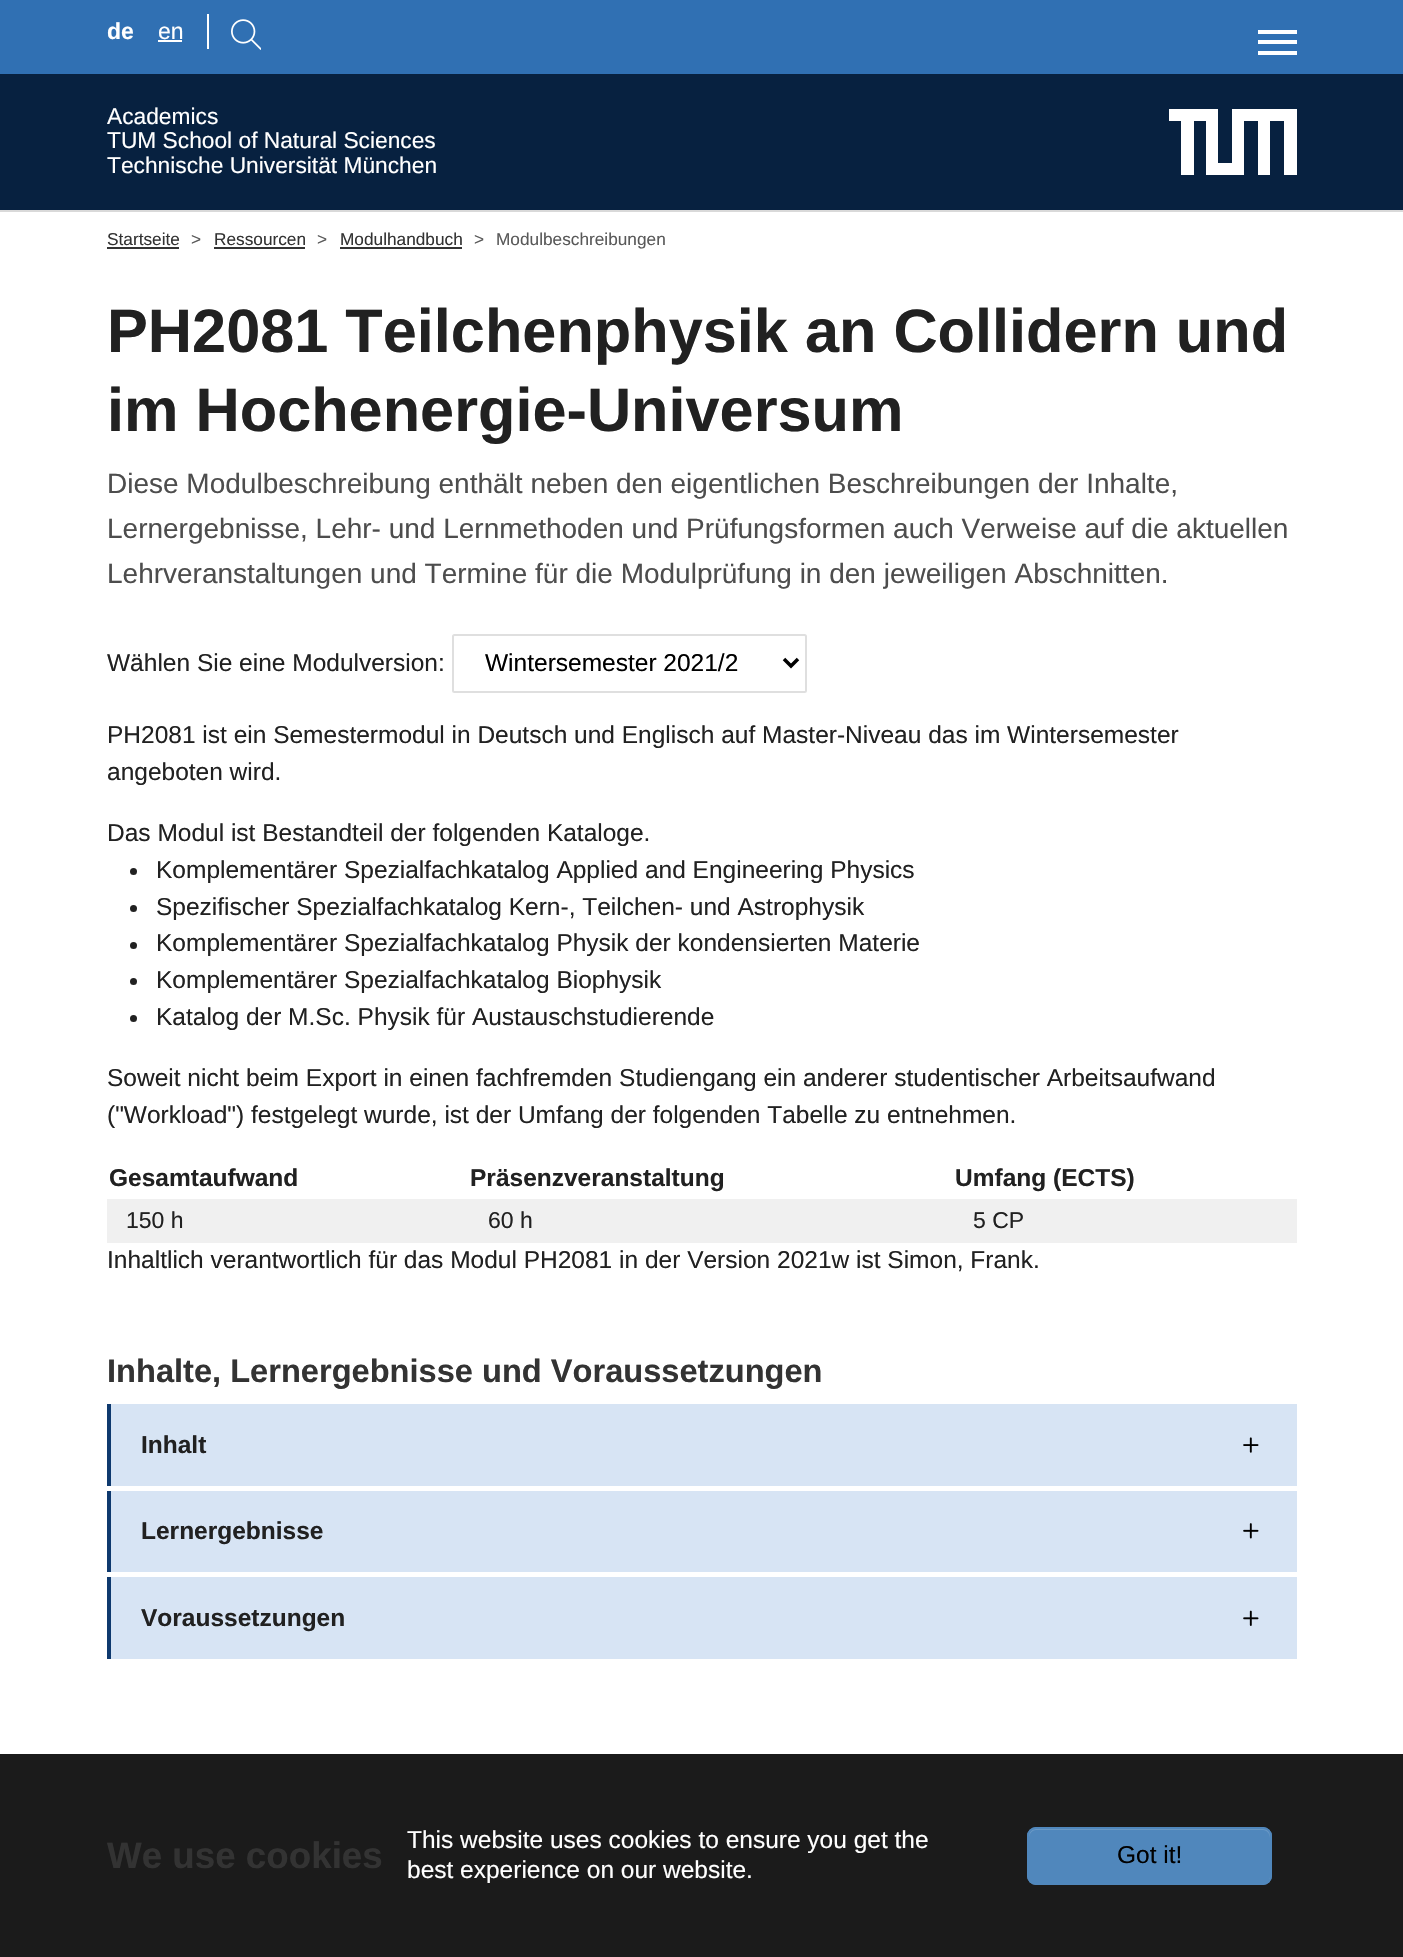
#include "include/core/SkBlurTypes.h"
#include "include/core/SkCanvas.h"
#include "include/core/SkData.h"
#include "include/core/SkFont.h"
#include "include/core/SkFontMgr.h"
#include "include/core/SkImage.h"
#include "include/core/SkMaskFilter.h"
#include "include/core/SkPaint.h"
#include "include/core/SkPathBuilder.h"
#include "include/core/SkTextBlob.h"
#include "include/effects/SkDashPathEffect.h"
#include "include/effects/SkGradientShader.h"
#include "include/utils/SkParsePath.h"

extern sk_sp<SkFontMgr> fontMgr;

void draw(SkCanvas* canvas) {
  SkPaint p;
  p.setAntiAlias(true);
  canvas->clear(SK_ColorWHITE);
  p.setColor(SkColorSetRGB(48, 112, 179));
  canvas->drawRect(SkRect::MakeLTRB(0, 0, 1403, 74), p);
  p.setColor(SK_ColorWHITE);
  canvas->drawRect(SkRect::MakeLTRB(158, 40, 182, 42), p);
  canvas->drawRect(SkRect::MakeLTRB(207, 14, 209, 49), p);
  canvas->drawImageRect(SkImages::DeferredFromEncodedData(SkData::MakeFromFileName("images/1.png")), SkRect::MakeLTRB(231, 19, 261, 50), SkSamplingOptions());
  p.setColor(SkColorSetRGB(217, 217, 217));
  canvas->drawPath(SkPathBuilder().moveTo(0, 210).lineTo(0, 212).lineTo(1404, 212).lineTo(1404, 75).lineTo(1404, 210).close().detach(), p);
  p.setColor(SkColorSetRGB(7, 33, 64));
  canvas->drawRect(SkRect::MakeLTRB(0, 74, 1403, 210), p);
  p.setColor(SK_ColorWHITE);
  canvas->drawRect(SkRect::MakeLTRB(1258, 40, 1297, 44), p);
  canvas->drawRect(SkRect::MakeLTRB(1258, 30, 1297, 34), p);
  canvas->drawRect(SkRect::MakeLTRB(1258, 51, 1297, 55), p);
  canvas->save();
  canvas->clipRect(SkRect::MakeLTRB(1169, 109, 1297, 175));
  canvas->drawPath(SkPathBuilder().moveTo(1218, 108).lineTo(1218, 163).lineTo(1232, 163).lineTo(1232, 108).lineTo(1297, 108).lineTo(1297, 175).lineTo(1284, 175).lineTo(1284, 121).lineTo(1270, 121).lineTo(1270, 175).lineTo(1258, 175).lineTo(1258, 121).lineTo(1244, 121).lineTo(1244, 175).lineTo(1206, 175).lineTo(1206, 121).lineTo(1194, 121).lineTo(1194, 175).lineTo(1181, 175).lineTo(1181, 121).lineTo(1169, 121).lineTo(1169, 108).close().detach(), p);
  canvas->restore();
  p.setColor(SkColorSetRGB(51, 51, 51));
  canvas->drawRect(SkRect::MakeLTRB(107, 247, 179, 249), p);
  canvas->drawRect(SkRect::MakeLTRB(214, 247, 305, 249), p);
  canvas->drawRect(SkRect::MakeLTRB(340, 247, 462, 249), p);
  p.setStyle(SkPaint::kStroke_Style);
  p.setStrokeWidth(2);
  p.setColor(SkColorSetRGB(223, 223, 223));
  canvas->drawRoundRect(SkRect::MakeLTRB(453, 635, 806, 692), 1.5f, 1.5f, p);
  p.setStrokeWidth(3.5f);
  p.setColor(SK_ColorBLACK);
  canvas->drawPath(SkPathBuilder().moveTo(784, 659).lineTo(791, 666).lineTo(798, 659).detach(), p);
  p.setStyle(SkPaint::kFill_Style);
  p.setColor(SkColorSetRGB(33, 33, 33));
  canvas->drawCircle(133.5f, 871.5f, 3.5f, p);
  canvas->drawCircle(133.5f, 908.5f, 3.5f, p);
  canvas->drawCircle(133.5f, 945.5f, 3.5f, p);
  canvas->drawCircle(133.5f, 981.5f, 3.5f, p);
  canvas->drawCircle(133.5f, 1018.5f, 3.5f, p);
  p.setColor(SkColorSetRGB(240, 240, 240));
  canvas->drawRect(SkRect::MakeLTRB(107, 1199, 1297, 1243), p);
  p.setColor(SkColorSetRGB(215, 228, 244));
  canvas->drawRect(SkRect::MakeLTRB(111, 1404, 1297, 1486), p);
  p.setColor(SkColorSetRGB(14, 57, 110));
  canvas->drawRect(SkRect::MakeLTRB(107, 1404, 111, 1486), p);
  canvas->drawImageRect(SkImages::DeferredFromEncodedData(SkData::MakeFromFileName("images/2.png")), SkRect::MakeLTRB(1243, 1437, 1259, 1453), SkSamplingOptions());
  p.setColor(SkColorSetRGB(215, 228, 244));
  canvas->drawRect(SkRect::MakeLTRB(111, 1491, 1297, 1572), p);
  p.setColor(SkColorSetRGB(14, 57, 110));
  canvas->drawRect(SkRect::MakeLTRB(107, 1491, 111, 1572), p);
  canvas->drawImageRect(SkImages::DeferredFromEncodedData(SkData::MakeFromFileName("images/3.png")), SkRect::MakeLTRB(1243, 1523, 1259, 1539), SkSamplingOptions());
  p.setColor(SkColorSetRGB(215, 228, 244));
  canvas->drawRect(SkRect::MakeLTRB(111, 1577, 1297, 1659), p);
  p.setColor(SkColorSetRGB(14, 57, 110));
  canvas->drawRect(SkRect::MakeLTRB(107, 1577, 111, 1659), p);
  canvas->drawImageRect(SkImages::DeferredFromEncodedData(SkData::MakeFromFileName("images/4.png")), SkRect::MakeLTRB(1243, 1610, 1259, 1626), SkSamplingOptions());
  p.setColor(SkColorSetRGB(27, 27, 27));
  canvas->drawRect(SkRect::MakeLTRB(0, 1754, 1403, 1957), p);
  p.setColor(SkColorSetRGB(80, 135, 188));
  canvas->drawRoundRect(SkRect::MakeLTRB(1027, 1827, 1272, 1885), 9, 9, p);
  p.setColor(SkColorSetRGB(106, 153, 198));
  canvas->drawPath(SkPathBuilder().moveTo(1036, 1830).lineTo(1263, 1830).cubicTo(1267, 1830, 1270, 1834, 1270, 1838).lineTo(1270, 1877).lineTo(1269, 1881).cubicTo(1270, 1880, 1271, 1878, 1271, 1876).lineTo(1271, 1836).cubicTo(1271, 1832, 1268, 1829, 1264, 1829).lineTo(1036, 1829).cubicTo(1032, 1829, 1029, 1832, 1029, 1836).lineTo(1029, 1838).cubicTo(1029, 1834, 1032, 1830, 1036, 1830).close().detach(), p);
  p.setStyle(SkPaint::kStroke_Style);
  p.setStrokeWidth(2);
  p.setColor(SkColorSetRGB(80, 135, 188));
  canvas->drawRoundRect(SkRect::MakeLTRB(1028, 1828, 1271, 1884), 8, 8, p);
  SkFont font1(fontMgr->matchFamilyStyle("Liberation Sans", SkFontStyle::Bold()), 23);
  font1.setSubpixel(true);
  p.setStyle(SkPaint::kFill_Style);
  p.setColor(SK_ColorWHITE);
  canvas->drawString("de", 107, 39, font1, p);
  SkFont font2(fontMgr->matchFamilyStyle("Liberation Sans", SkFontStyle::Normal()), 23);
  font2.setSubpixel(true);
  canvas->drawString("en", 158, 39, font2, p);
  SkFont font3(fontMgr->matchFamilyStyle("Liberation Sans", SkFontStyle::Normal()), 22.75f);
  font3.setSubpixel(true);
  canvas->drawString("Academics", 107, 124, font3, p);
  canvas->drawString("TUM School of Natural Sciences", 107, 148, font3, p);
  canvas->drawString("Technische Universität München", 107, 173, font3, p);
  SkFont font4(fontMgr->matchFamilyStyle("Liberation Sans", SkFontStyle::Normal()), 17.25f);
  font4.setSubpixel(true);
  p.setColor(SkColorSetRGB(51, 51, 51));
  canvas->drawString("Startseite", 107, 245, font4, p);
  p.setColor(SkColorSetRGB(89, 89, 89));
  canvas->drawString(">", 191, 245, font4, p);
  p.setColor(SkColorSetRGB(51, 51, 51));
  canvas->drawString("Ressourcen", 214, 245, font4, p);
  p.setColor(SkColorSetRGB(89, 89, 89));
  canvas->drawString(">", 317, 245, font4, p);
  p.setColor(SkColorSetRGB(51, 51, 51));
  canvas->drawString("Modulhandbuch", 340, 245, font4, p);
  p.setColor(SkColorSetRGB(89, 89, 89));
  canvas->drawString(">", 474, 245, font4, p);
  canvas->drawString("Modulbeschreibungen", 496, 245, font4, p);
  SkFont font5(fontMgr->matchFamilyStyle("Liberation Sans", SkFontStyle::Bold()), 61.25f);
  font5.setSubpixel(true);
  p.setColor(SkColorSetRGB(33, 33, 33));
  canvas->drawString("PH2081 Teilchenphysik an Collidern und", 107, 352, font5, p);
  canvas->drawString("im Hochenergie-Universum", 107, 431, font5, p);
  SkFont font6(fontMgr->matchFamilyStyle("Liberation Sans", SkFontStyle::Normal()), 28);
  font6.setSubpixel(true);
  p.setColor(SkColorSetRGB(77, 77, 77));
  canvas->drawString("Diese Modulbeschreibung enthält neben den eigentlichen Beschreibungen der Inhalte,", 107, 493, font6, p);
  canvas->drawString("Lernergebnisse, Lehr- und Lernmethoden und Prüfungsformen auch Verweise auf die aktuellen", 107, 538, font6, p);
  canvas->drawString("Lehrveranstaltungen und Termine für die Modulprüfung in den jeweiligen Abschnitten.", 107, 583, font6, p);
  SkFont font7(fontMgr->matchFamilyStyle("Liberation Sans", SkFontStyle::Normal()), 24.5f);
  font7.setSubpixel(true);
  p.setColor(SkColorSetRGB(33, 33, 33));
  canvas->drawString("Wählen Sie eine Modulversion:", 107, 671, font7, p);
  p.setColor(SK_ColorBLACK);
  canvas->drawString("Wintersemester 2021/2", 485, 671, font7, p);
  p.setColor(SkColorSetRGB(33, 33, 33));
  canvas->drawString("PH2081 ist ein Semestermodul in Deutsch und Englisch auf Master-Niveau das im Wintersemester", 107, 743, font7, p);
  canvas->drawString("angeboten wird.", 107, 780, font7, p);
  canvas->drawString("Das Modul ist Bestandteil der folgenden Kataloge.", 107, 841, font7, p);
  canvas->drawString("Komplementärer Spezialfachkatalog Applied and Engineering Physics", 156, 878, font7, p);
  canvas->drawString("Spezifischer Spezialfachkatalog Kern-, Teilchen- und Astrophysik", 156, 915, font7, p);
  canvas->drawString("Komplementärer Spezialfachkatalog Physik der kondensierten Materie", 156, 951, font7, p);
  canvas->drawString("Komplementärer Spezialfachkatalog Biophysik", 156, 988, font7, p);
  canvas->drawString("Katalog der M.Sc. Physik für Austauschstudierende", 156, 1025, font7, p);
  canvas->drawString("Soweit nicht beim Export in einen fachfremden Studiengang ein anderer studentischer Arbeitsaufwand", 107, 1086, font7, p);
  canvas->drawString("(\"Workload\") festgelegt wurde, ist der Umfang der folgenden Tabelle zu entnehmen.", 107, 1123, font7, p);
  SkFont font8(fontMgr->matchFamilyStyle("Liberation Sans", SkFontStyle::Bold()), 24.5f);
  font8.setSubpixel(true);
  canvas->drawString("Gesamtaufwand", 109, 1186, font8, p);
  canvas->drawString("Präsenzveranstaltung", 470, 1186, font8, p);
  canvas->drawString("Umfang (ECTS)", 955, 1186, font8, p);
  canvas->drawString("150 h", 126, 1228, font2, p);
  canvas->drawString("60 h", 488, 1228, font2, p);
  canvas->drawString("5 CP", 973, 1228, font2, p);
  canvas->drawString("Inhaltlich verantwortlich für das Modul PH2081 in der Version 2021w ist Simon, Frank.", 107, 1268, font7, p);
  SkFont font9(fontMgr->matchFamilyStyle("Liberation Sans", SkFontStyle::Bold()), 32.6f);
  font9.setSubpixel(true);
  p.setColor(SkColorSetRGB(51, 51, 51));
  canvas->drawString("Inhalte, Lernergebnisse und Voraussetzungen", 107, 1382, font9, p);
  p.setColor(SkColorSetRGB(33, 33, 33));
  canvas->drawString("Inhalt", 141, 1453, font8, p);
  canvas->drawString("Lernergebnisse", 141, 1539, font8, p);
  canvas->drawString("Voraussetzungen", 141, 1626, font8, p);
  SkFont font10(fontMgr->matchFamilyStyle("Liberation Sans", SkFontStyle::Bold()), 36.75f);
  font10.setSubpixel(true);
  p.setColor(SkColorSetRGB(51, 51, 51));
  canvas->drawString("We use cookies", 107, 1868, font10, p);
  p.setColor(SK_ColorWHITE);
  canvas->drawString("This website uses cookies to ensure you get the", 407, 1848, font7, p);
  canvas->drawString("best experience on our website.", 407, 1878, font7, p);
  p.setColor(SK_ColorBLACK);
  canvas->drawString("Got it!", 1117, 1863, font7, p);
}
